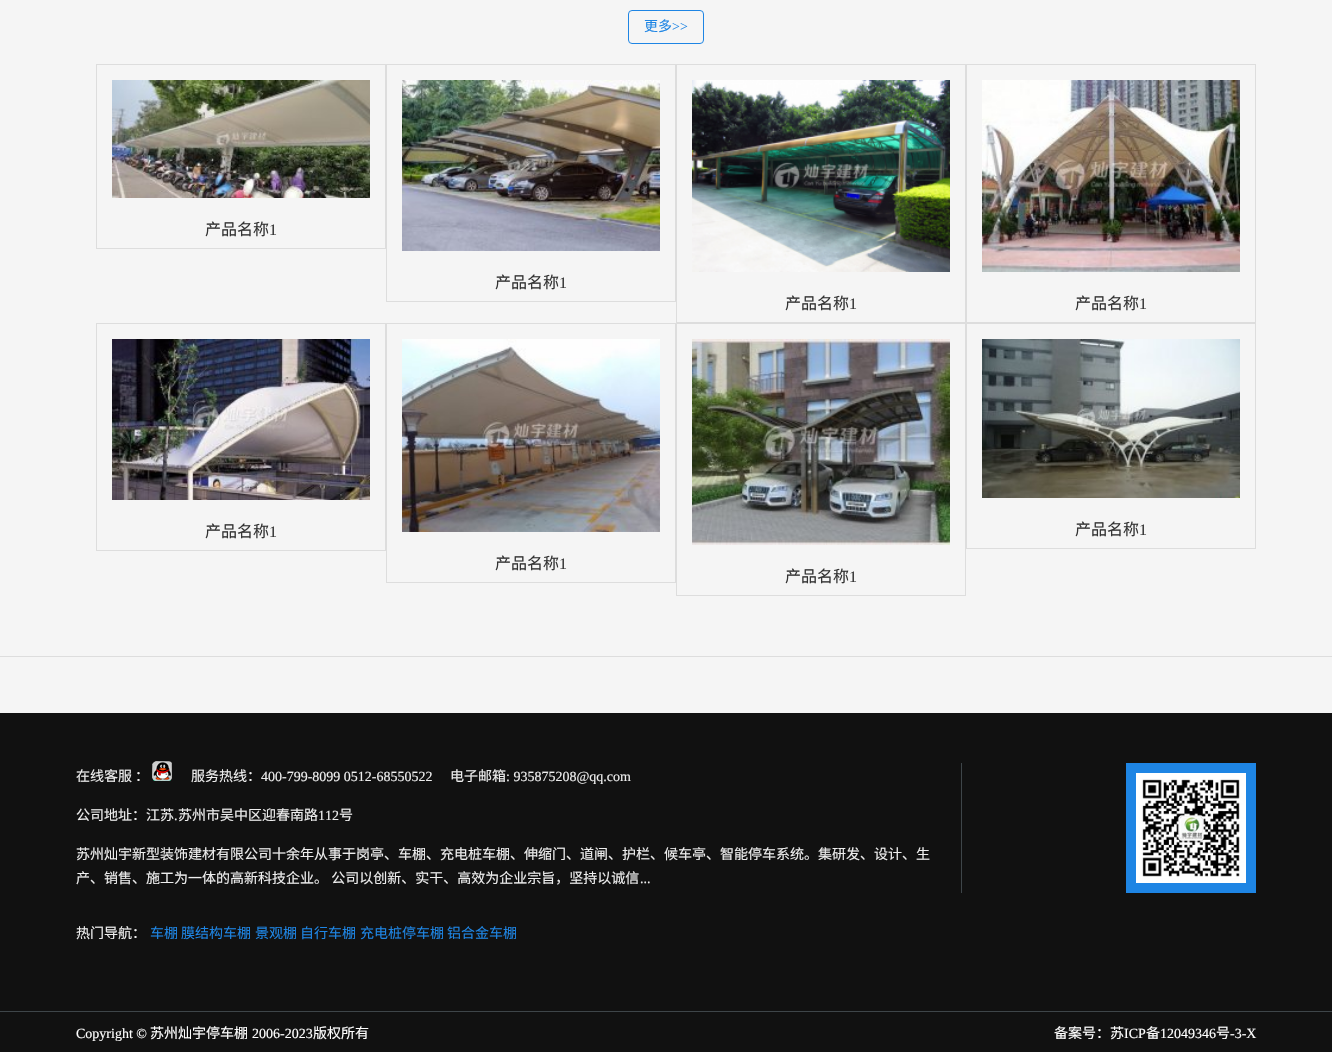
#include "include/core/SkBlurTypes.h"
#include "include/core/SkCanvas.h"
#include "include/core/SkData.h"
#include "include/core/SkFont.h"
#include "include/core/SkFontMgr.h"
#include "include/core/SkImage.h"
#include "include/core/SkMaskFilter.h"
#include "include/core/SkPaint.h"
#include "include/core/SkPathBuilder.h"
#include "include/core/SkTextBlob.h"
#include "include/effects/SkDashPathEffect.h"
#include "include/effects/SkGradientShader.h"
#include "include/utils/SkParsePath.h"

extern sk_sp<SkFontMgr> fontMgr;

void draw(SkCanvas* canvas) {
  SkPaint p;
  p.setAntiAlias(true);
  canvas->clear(SkColorSetRGB(245, 245, 245));
  p.setStyle(SkPaint::kStroke_Style);
  p.setStrokeWidth(1);
  p.setColor(SkColorSetRGB(30, 133, 228));
  canvas->drawRoundRect(SkRect::MakeLTRB(628.5f, 10.5f, 703.5f, 43.5f), 3.5f, 3.5f, p);
  p.setColor(SkColorSetRGB(221, 221, 221));
  canvas->drawRect(SkRect::MakeLTRB(96.5f, 64.5f, 385.5f, 248.5f), p);
  canvas->drawImageRect(SkImages::DeferredFromEncodedData(SkData::MakeFromFileName("images/1.png")), SkRect::MakeLTRB(112, 80, 370, 198), SkSamplingOptions());
  canvas->drawRect(SkRect::MakeLTRB(386.5f, 64.5f, 675.5f, 301.5f), p);
  canvas->drawImageRect(SkImages::DeferredFromEncodedData(SkData::MakeFromFileName("images/2.png")), SkRect::MakeLTRB(402, 80, 660, 251), SkSamplingOptions());
  canvas->drawRect(SkRect::MakeLTRB(676.5f, 64.5f, 965.5f, 322.5f), p);
  canvas->drawImageRect(SkImages::DeferredFromEncodedData(SkData::MakeFromFileName("images/3.png")), SkRect::MakeLTRB(692, 80, 950, 272), SkSamplingOptions());
  canvas->drawRect(SkRect::MakeLTRB(966.5f, 64.5f, 1255.5f, 322.5f), p);
  canvas->drawImageRect(SkImages::DeferredFromEncodedData(SkData::MakeFromFileName("images/4.png")), SkRect::MakeLTRB(982, 80, 1240, 272), SkSamplingOptions());
  canvas->drawRect(SkRect::MakeLTRB(96.5f, 323.5f, 385.5f, 550.5f), p);
  canvas->drawImageRect(SkImages::DeferredFromEncodedData(SkData::MakeFromFileName("images/5.png")), SkRect::MakeLTRB(112, 339, 370, 500), SkSamplingOptions());
  canvas->drawRect(SkRect::MakeLTRB(966.5f, 323.5f, 1255.5f, 548.5f), p);
  canvas->drawImageRect(SkImages::DeferredFromEncodedData(SkData::MakeFromFileName("images/6.png")), SkRect::MakeLTRB(982, 339, 1240, 498), SkSamplingOptions());
  canvas->drawRect(SkRect::MakeLTRB(386.5f, 323.5f, 675.5f, 582.5f), p);
  canvas->drawImageRect(SkImages::DeferredFromEncodedData(SkData::MakeFromFileName("images/7.png")), SkRect::MakeLTRB(402, 339, 660, 532), SkSamplingOptions());
  canvas->drawRect(SkRect::MakeLTRB(676.5f, 323.5f, 965.5f, 595.5f), p);
  canvas->drawImageRect(SkImages::DeferredFromEncodedData(SkData::MakeFromFileName("images/8.png")), SkRect::MakeLTRB(692, 339, 950, 545), SkSamplingOptions());
  p.setStyle(SkPaint::kFill_Style);
  canvas->drawRect(SkRect::MakeLTRB(0, 656, 1332, 657), p);
  p.setColor(SkColorSetRGB(17, 17, 17));
  canvas->drawRect(SkRect::MakeLTRB(0, 713, 1332, 1011), p);
  canvas->drawImageRect(SkImages::DeferredFromEncodedData(SkData::MakeFromFileName("images/9.png")), SkRect::MakeLTRB(152, 761, 172, 781), SkSamplingOptions());
  p.setColor(SkColorSetRGB(62, 69, 73));
  canvas->drawRect(SkRect::MakeLTRB(961, 763, 962, 893), p);
  p.setStyle(SkPaint::kStroke_Style);
  p.setStrokeWidth(10);
  p.setColor(SkColorSetRGB(30, 133, 228));
  canvas->drawRect(SkRect::MakeLTRB(1131, 768, 1251, 888), p);
  canvas->drawImageRect(SkImages::DeferredFromEncodedData(SkData::MakeFromFileName("images/10.png")), SkRect::MakeLTRB(1136, 773, 1246, 883), SkSamplingOptions());
  p.setStyle(SkPaint::kFill_Style);
  p.setColor(SkColorSetRGB(17, 17, 17));
  canvas->drawRect(SkRect::MakeLTRB(0, 1012, 1332, 1052), p);
  p.setColor(SkColorSetRGB(62, 69, 73));
  canvas->drawRect(SkRect::MakeLTRB(0, 1011, 1332, 1012), p);
  SkFont font1(fontMgr->matchFamilyStyle("Noto Sans CJK SC", SkFontStyle::Normal()), 14);
  font1.setSubpixel(true);
  p.setColor(SkColorSetRGB(30, 133, 228));
  canvas->drawString("更多", 644, 31, font1, p);
  SkFont font2(fontMgr->matchFamilyStyle("Liberation Serif", SkFontStyle::Normal()), 14);
  font2.setSubpixel(true);
  canvas->drawString(">>", 672, 31, font2, p);
  SkFont font3(fontMgr->matchFamilyStyle("Noto Sans CJK SC", SkFontStyle::Normal()), 16);
  font3.setSubpixel(true);
  p.setColor(SkColorSetRGB(51, 51, 51));
  canvas->drawString("产品名称", 205, 235, font3, p);
  SkFont font4(fontMgr->matchFamilyStyle("Liberation Serif", SkFontStyle::Normal()), 16);
  font4.setSubpixel(true);
  canvas->drawString("1", 269, 235, font4, p);
  canvas->drawString("产品名称", 495, 288, font3, p);
  canvas->drawString("1", 559, 288, font4, p);
  canvas->drawString("产品名称", 785, 309, font3, p);
  canvas->drawString("1", 849, 309, font4, p);
  canvas->drawString("产品名称", 1075, 309, font3, p);
  canvas->drawString("1", 1139, 309, font4, p);
  canvas->drawString("产品名称", 205, 537, font3, p);
  canvas->drawString("1", 269, 537, font4, p);
  canvas->drawString("产品名称", 1075, 535, font3, p);
  canvas->drawString("1", 1139, 535, font4, p);
  canvas->drawString("产品名称", 495, 569, font3, p);
  canvas->drawString("1", 559, 569, font4, p);
  canvas->drawString("产品名称", 785, 582, font3, p);
  canvas->drawString("1", 849, 582, font4, p);
  p.setColor(SkColorSetRGB(238, 238, 238));
  canvas->drawString("在线客服", 76, 781, font1, p);
  canvas->drawString("：", 135, 781, font1, p);
  canvas->drawString("服务热线：", 191, 781, font1, p);
  canvas->drawString("400-799-8099 0512-68550522", 261, 781, font2, p);
  canvas->drawString("电子邮箱", 450, 781, font1, p);
  canvas->drawString(": 935875208@qq.com", 506, 781, font2, p);
  canvas->drawString("公司地址：江苏", 76, 820, font1, p);
  canvas->drawString(".", 174, 820, font2, p);
  canvas->drawString("苏州市吴中区迎春南路", 178, 820, font1, p);
  canvas->drawString("112", 318, 820, font2, p);
  canvas->drawString("号", 339, 820, font1, p);
  canvas->drawString("苏州灿宇新型装饰建材有限公司十余年从事于岗亭、车棚、充电桩车棚、伸缩门、道闸、护栏、候车亭、智能停车系统。集研发、设计、生", 76, 859, font1, p);
  canvas->drawString("产、销售、施工为一体的高新科技企业。 公司以创新、实干、高效为企业宗旨，坚持以诚信", 76, 883, font1, p);
  canvas->drawString("...", 640, 883, font2, p);
  canvas->drawString("热门导航：", 76, 938, font1, p);
  p.setColor(SkColorSetRGB(30, 133, 228));
  canvas->drawString("车棚", 150, 938, font1, p);
  canvas->drawString("膜结构车棚", 181, 938, font1, p);
  canvas->drawString("景观棚", 255, 938, font1, p);
  canvas->drawString("自行车棚", 300, 938, font1, p);
  canvas->drawString("充电桩停车棚", 360, 938, font1, p);
  canvas->drawString("铝合金车棚", 447, 938, font1, p);
  p.setColor(SK_ColorWHITE);
  canvas->drawString("Copyright ©", 76, 1038, font2, p);
  canvas->drawString("苏州灿宇停车棚", 150, 1038, font1, p);
  canvas->drawString("2006-2023", 252, 1038, font2, p);
  canvas->drawString("版权所有", 313, 1038, font1, p);
  canvas->drawString("备案号：苏", 1054, 1038, font1, p);
  canvas->drawString("ICP", 1124, 1038, font2, p);
  canvas->drawString("备", 1146, 1038, font1, p);
  canvas->drawString("12049346", 1160, 1038, font2, p);
  canvas->drawString("号", 1216, 1038, font1, p);
  canvas->drawString("-3-X", 1230, 1038, font2, p);
}
